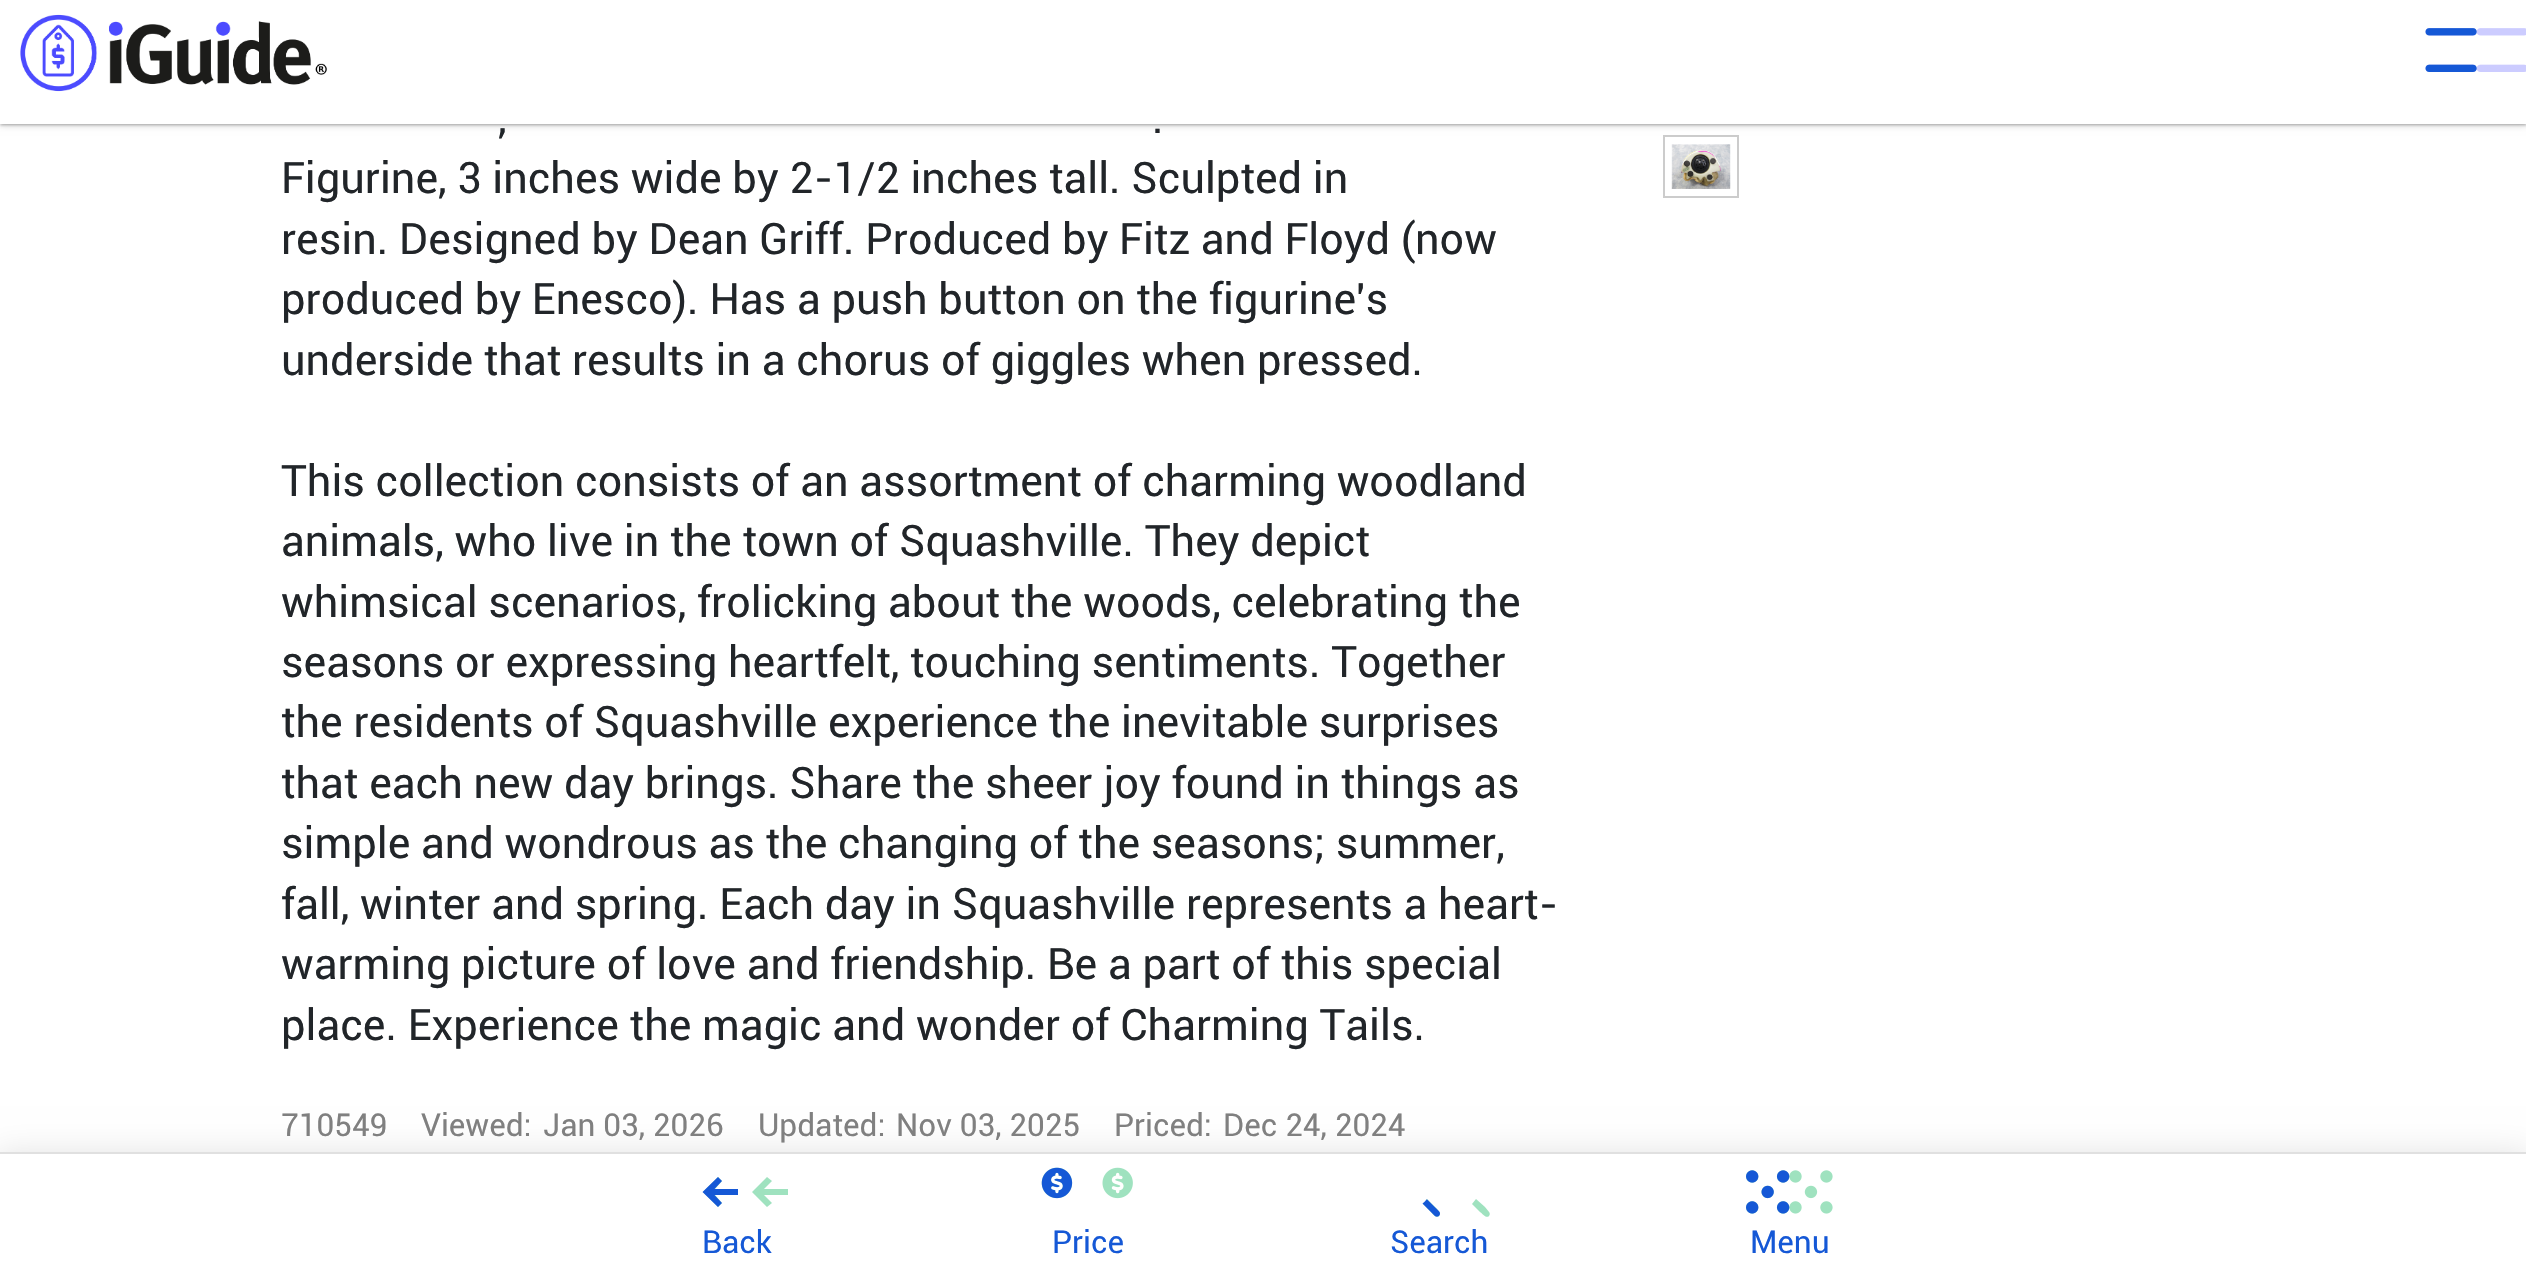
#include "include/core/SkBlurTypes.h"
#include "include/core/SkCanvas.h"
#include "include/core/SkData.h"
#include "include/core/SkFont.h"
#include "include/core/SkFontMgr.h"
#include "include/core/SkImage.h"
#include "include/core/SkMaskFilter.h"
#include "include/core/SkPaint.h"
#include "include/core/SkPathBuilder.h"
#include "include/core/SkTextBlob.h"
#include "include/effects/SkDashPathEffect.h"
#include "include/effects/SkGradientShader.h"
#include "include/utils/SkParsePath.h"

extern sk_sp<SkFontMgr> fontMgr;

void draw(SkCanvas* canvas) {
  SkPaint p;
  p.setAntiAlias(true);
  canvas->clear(SK_ColorWHITE);
  p.setStyle(SkPaint::kStroke_Style);
  p.setStrokeWidth(2);
  p.setColor(SkColorSetRGB(204, 204, 204));
  canvas->drawRect(SkRect::MakeLTRB(1664, 136, 1738, 197), p);
  p.setStyle(SkPaint::kFill_Style);
  p.setColor(SkColorSetARGB(31, 0, 0, 0));
  p.setMaskFilter(SkMaskFilter::MakeBlur(kNormal_SkBlurStyle, 3.5f));
  canvas->drawRect(SkRect::MakeLTRB(0, 2, 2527, 126), p);
  p.setMaskFilter(nullptr);
  p.setColor(SkColorSetARGB(36, 0, 0, 0));
  p.setMaskFilter(SkMaskFilter::MakeBlur(kNormal_SkBlurStyle, 1));
  canvas->drawRect(SkRect::MakeLTRB(0, 2, 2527, 126), p);
  p.setMaskFilter(nullptr);
  p.setColor(SkColorSetARGB(51, 0, 0, 0));
  p.setMaskFilter(SkMaskFilter::MakeBlur(kNormal_SkBlurStyle, 1));
  canvas->drawRect(SkRect::MakeLTRB(2, 5, 2525, 124), p);
  p.setMaskFilter(nullptr);
  p.setColor(SK_ColorWHITE);
  canvas->drawRect(SkRect::MakeLTRB(0, 0, 2526, 124), p);
  canvas->drawImageRect(SkImages::DeferredFromEncodedData(SkData::MakeFromFileName("images/1.png")), SkRect::MakeLTRB(20, 14, 328, 92), SkSamplingOptions());
  canvas->drawImageRect(SkImages::DeferredFromEncodedData(SkData::MakeFromFileName("images/2.png")), SkRect::MakeLTRB(2425, 28, 2526, 72), SkSamplingOptions());
  canvas->drawImageRect(SkImages::DeferredFromEncodedData(SkData::MakeFromFileName("images/3.png")), SkRect::MakeLTRB(2425, 28, 2477, 72), SkSamplingOptions());
  canvas->drawImageRect(SkImages::DeferredFromEncodedData(SkData::MakeFromFileName("images/4.png")), SkRect::MakeLTRB(1671, 144, 1731, 189), SkSamplingOptions());
  p.setColor(SkColorSetARGB(31, 0, 0, 0));
  p.setMaskFilter(SkMaskFilter::MakeBlur(kNormal_SkBlurStyle, 16));
  canvas->drawRect(SkRect::MakeLTRB(-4, 1154, 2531, 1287), p);
  p.setMaskFilter(nullptr);
  p.setColor(SK_ColorWHITE);
  canvas->drawRect(SkRect::MakeLTRB(0, 1154, 2526, 1275), p);
  p.setColor(SkColorSetRGB(224, 224, 224));
  canvas->drawRect(SkRect::MakeLTRB(0, 1152, 2526, 1154), p);
  p.setColor(SkColorSetRGB(159, 226, 191));
  canvas->drawPath(SkPathBuilder().moveTo(718, 1177).lineTo(703, 1192).lineTo(718, 1207).lineTo(722, 1203).lineTo(715, 1195).lineTo(738, 1195).lineTo(738, 1189).lineTo(715, 1189).lineTo(722, 1181).close().moveTo(767, 1177).lineTo(752, 1192).lineTo(767, 1207).lineTo(772, 1203).lineTo(764, 1195).lineTo(788, 1195).lineTo(788, 1189).lineTo(764, 1189).lineTo(772, 1181).close().detach(), p);
  p.setColor(SkColorSetRGB(21, 88, 214));
  canvas->drawPath(SkPathBuilder().moveTo(718, 1177).lineTo(702.5f, 1192).lineTo(718, 1207).lineTo(722, 1203).lineTo(714.5f, 1195).lineTo(738, 1195).lineTo(738, 1189).lineTo(714.5f, 1189).lineTo(722, 1181).close().detach(), p);
  canvas->drawImageRect(SkImages::DeferredFromEncodedData(SkData::MakeFromFileName("images/5.png")), SkRect::MakeLTRB(1041, 1167, 1133, 1199), SkSamplingOptions());
  canvas->drawImageRect(SkImages::DeferredFromEncodedData(SkData::MakeFromFileName("images/6.png")), SkRect::MakeLTRB(1041, 1167, 1073, 1199), SkSamplingOptions());
  p.setColor(SkColorSetRGB(159, 226, 191));
  canvas->drawPath(SkPathBuilder().moveTo(1423, 1204).lineTo(1435, 1216).lineTo(1423, 1204).lineTo(1431, 1212).cubicTo(1432, 1213, 1436, 1219, 1439, 1216).cubicTo(1442, 1213, 1437, 1209, 1435, 1207).lineTo(1427, 1199).close().moveTo(1472, 1204).lineTo(1484, 1216).lineTo(1472, 1204).lineTo(1480, 1212).cubicTo(1482, 1213, 1486, 1219, 1489, 1216).cubicTo(1492, 1213, 1486, 1209, 1485, 1207).lineTo(1476, 1199).close().detach(), p);
  canvas->drawImageRect(SkImages::DeferredFromEncodedData(SkData::MakeFromFileName("images/7.png")), SkRect::MakeLTRB(1422, 1199, 1440, 1217), SkSamplingOptions());
  canvas->drawImageRect(SkImages::DeferredFromEncodedData(SkData::MakeFromFileName("images/8.png")), SkRect::MakeLTRB(1746, 1170, 1833, 1214), SkSamplingOptions());
  canvas->drawImageRect(SkImages::DeferredFromEncodedData(SkData::MakeFromFileName("images/9.png")), SkRect::MakeLTRB(1746, 1170, 1790, 1214), SkSamplingOptions());
  SkFont font1(fontMgr->matchFamilyStyle("Roboto", SkFontStyle::Normal()), 43.2f);
  font1.setSubpixel(true);
  p.setColor(SkColorSetRGB(33, 37, 41));
  canvas->drawString(",", 498, 133, font1, p);
  canvas->drawString(".", 1152, 133, font1, p);
  canvas->drawString("Figurine, 3 inches wide by 2-1/2 inches tall. Sculpted in", 281, 193, font1, p);
  canvas->drawString("resin. Designed by Dean Griff. Produced by Fitz and Floyd (now", 281, 254, font1, p);
  canvas->drawString("produced by Enesco). Has a push button on the figurine's", 281, 314, font1, p);
  canvas->drawString("underside that results in a chorus of giggles when pressed.", 281, 375, font1, p);
  canvas->drawString("This collection consists of an assortment of charming woodland", 281, 496, font1, p);
  canvas->drawString("animals, who live in the town of Squashville. They depict", 281, 556, font1, p);
  canvas->drawString("whimsical scenarios, frolicking about the woods, celebrating the", 281, 617, font1, p);
  canvas->drawString("seasons or expressing heartfelt, touching sentiments. Together", 281, 677, font1, p);
  canvas->drawString("the residents of Squashville experience the inevitable surprises", 281, 737, font1, p);
  canvas->drawString("that each new day brings. Share the sheer joy found in things as", 281, 798, font1, p);
  canvas->drawString("simple and wondrous as the changing of the seasons; summer,", 281, 858, font1, p);
  canvas->drawString("fall, winter and spring. Each day in Squashville represents a heart-", 281, 919, font1, p);
  canvas->drawString("warming picture of love and friendship. Be a part of this special", 281, 979, font1, p);
  canvas->drawString("place. Experience the magic and wonder of Charming Tails.", 281, 1040, font1, p);
  SkFont font2(fontMgr->matchFamilyStyle("Roboto", SkFontStyle::Normal()), 31.5f);
  font2.setSubpixel(true);
  p.setColor(SkColorSetRGB(128, 128, 128));
  canvas->drawString("710549", 281, 1136, font2, p);
  canvas->drawString("Viewed:", 421, 1136, font2, p);
  canvas->drawString("Jan 03, 2026", 543, 1136, font2, p);
  canvas->drawString("Updated:", 758, 1136, font2, p);
  canvas->drawString("Nov 03, 2025", 896, 1136, font2, p);
  canvas->drawString("Priced:", 1114, 1136, font2, p);
  canvas->drawString("Dec 24, 2024", 1223, 1136, font2, p);
  p.setColor(SkColorSetRGB(21, 88, 214));
  canvas->drawString("Back", 702, 1253, font2, p);
  canvas->drawString("Price", 1052, 1253, font2, p);
  canvas->drawString("Search", 1390, 1253, font2, p);
  canvas->drawString("Menu", 1750, 1253, font2, p);
}
